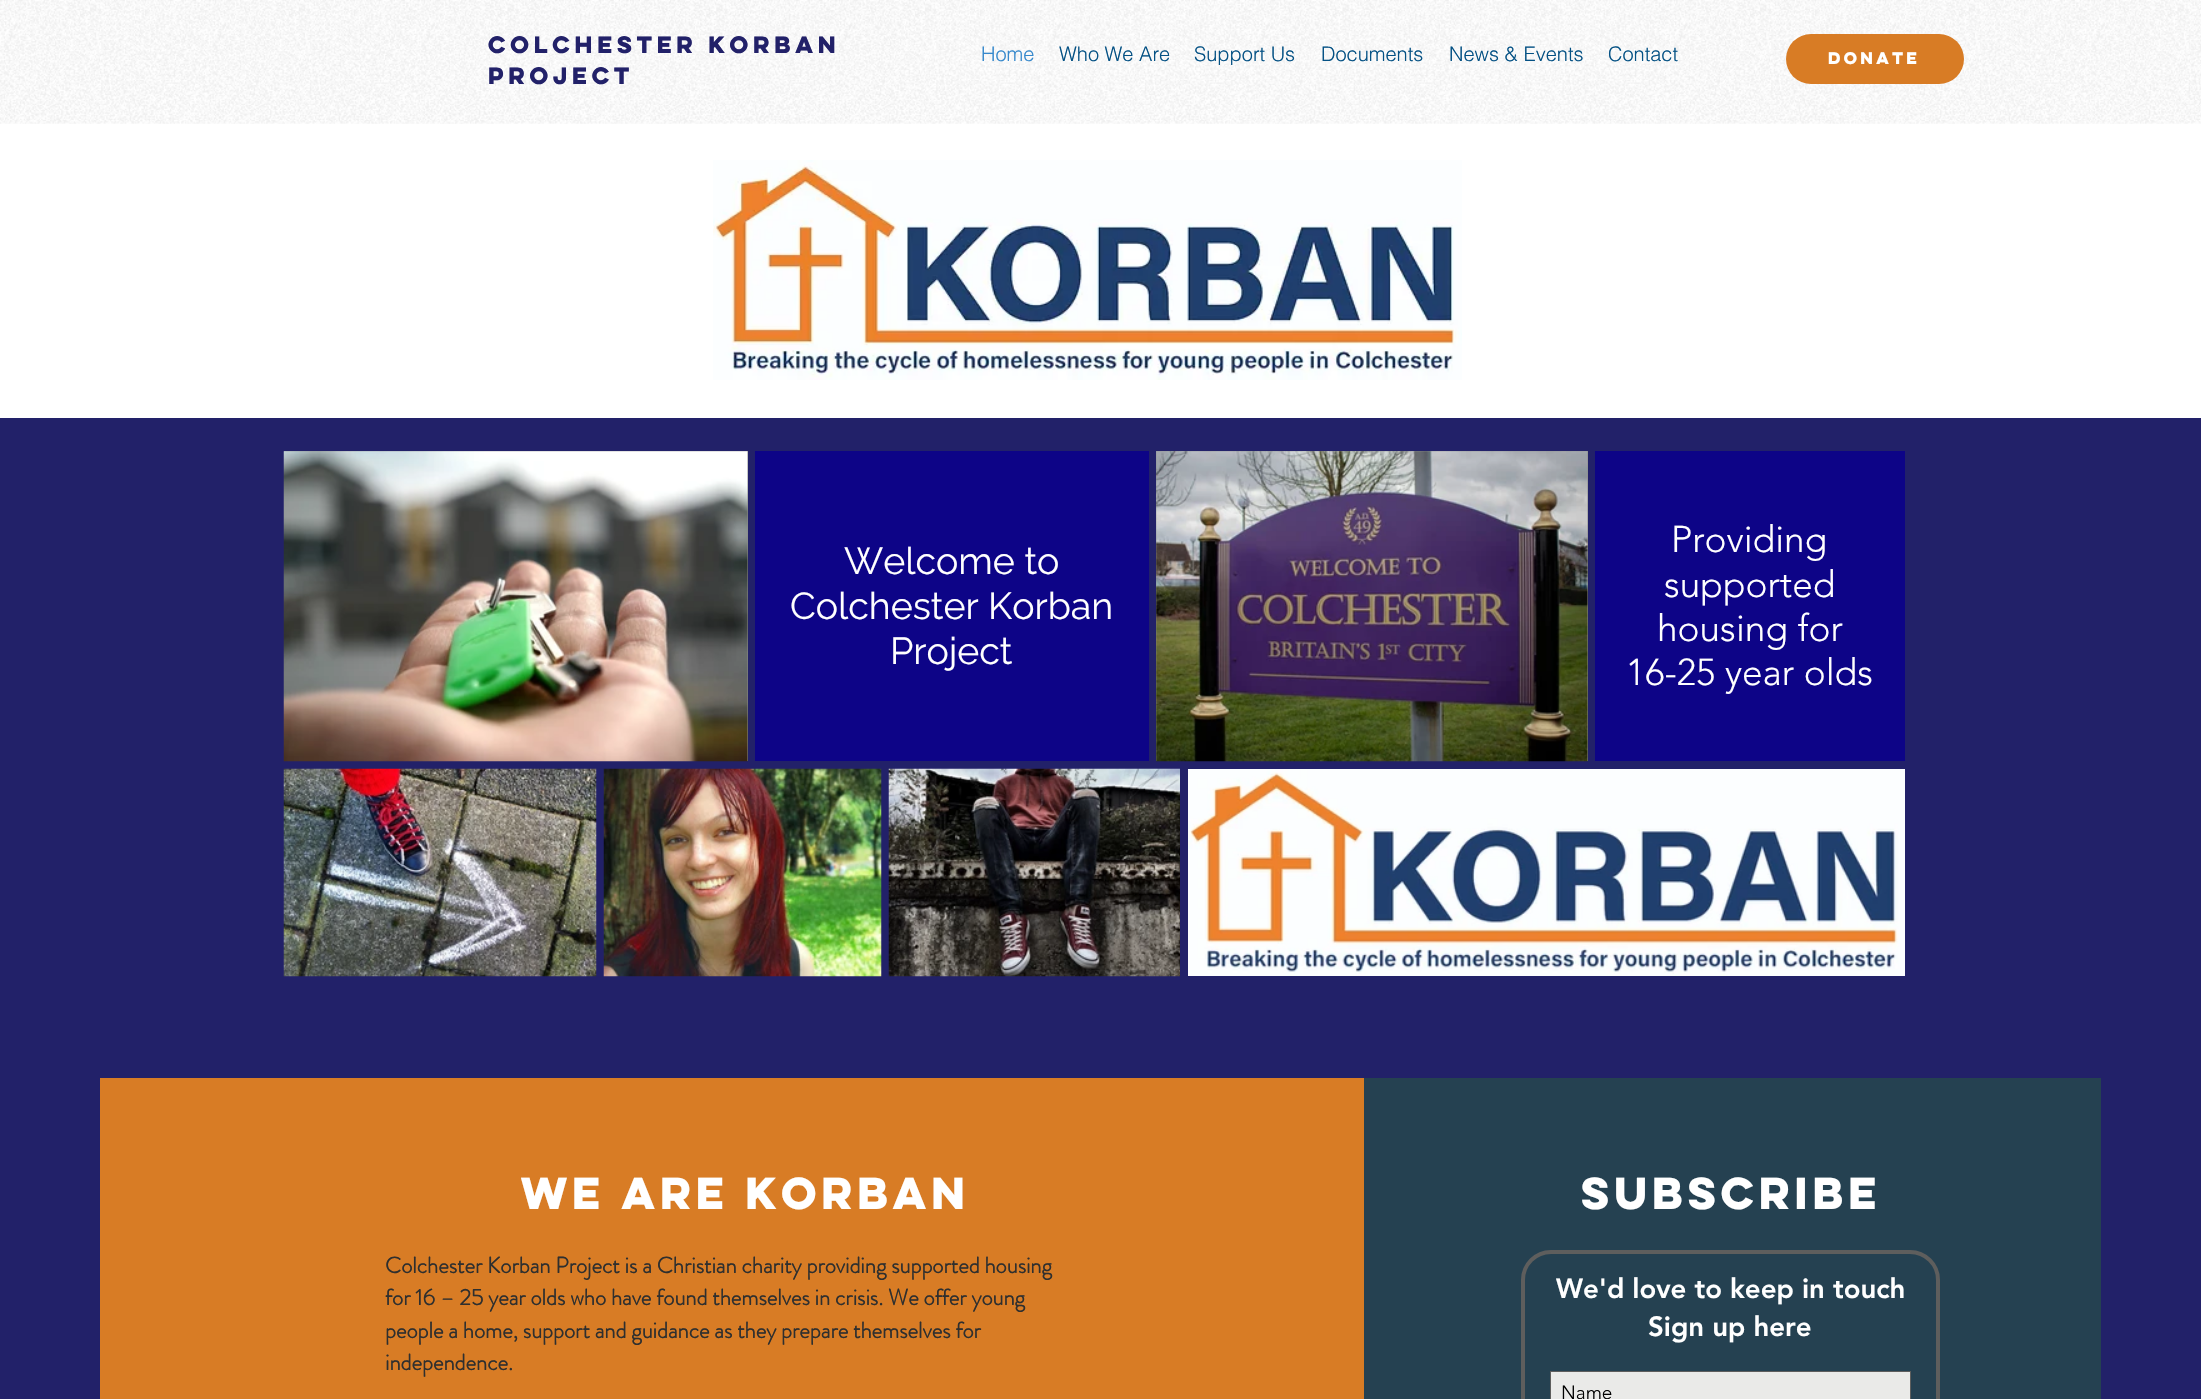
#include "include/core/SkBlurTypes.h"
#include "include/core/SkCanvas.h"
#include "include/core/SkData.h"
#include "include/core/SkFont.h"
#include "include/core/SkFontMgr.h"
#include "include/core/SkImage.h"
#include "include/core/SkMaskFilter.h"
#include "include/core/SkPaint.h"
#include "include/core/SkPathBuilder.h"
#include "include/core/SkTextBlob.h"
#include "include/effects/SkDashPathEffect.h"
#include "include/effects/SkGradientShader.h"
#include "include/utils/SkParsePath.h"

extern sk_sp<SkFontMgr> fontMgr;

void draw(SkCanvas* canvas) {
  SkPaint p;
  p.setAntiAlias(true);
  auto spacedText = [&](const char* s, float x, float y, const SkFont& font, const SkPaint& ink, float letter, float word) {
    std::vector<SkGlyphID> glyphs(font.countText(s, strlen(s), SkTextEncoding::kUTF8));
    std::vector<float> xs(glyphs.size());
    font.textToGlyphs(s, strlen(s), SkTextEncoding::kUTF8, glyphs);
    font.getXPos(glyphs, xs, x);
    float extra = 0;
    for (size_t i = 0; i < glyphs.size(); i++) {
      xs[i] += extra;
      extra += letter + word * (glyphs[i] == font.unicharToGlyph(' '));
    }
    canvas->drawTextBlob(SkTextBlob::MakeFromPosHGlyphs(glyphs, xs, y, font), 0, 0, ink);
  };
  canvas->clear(SkColorSetRGB(34, 33, 105));
  p.setColor(SK_ColorWHITE);
  canvas->drawRect(SkRect::MakeLTRB(0, 0, 2201, 418), p);
  canvas->drawImageRect(SkImages::DeferredFromEncodedData(SkData::MakeFromFileName("images/1.png")), SkRect::MakeLTRB(0, 0, 2201, 124), SkSamplingOptions());
  p.setColor(SkColorSetRGB(216, 124, 37));
  canvas->drawRoundRect(SkRect::MakeLTRB(1786, 34, 1964, 84), 25, 25, p);
  canvas->drawImageRect(SkImages::DeferredFromEncodedData(SkData::MakeFromFileName("images/2.png")), SkRect::MakeLTRB(713, 160, 1462, 380), SkSamplingOptions());
  p.setColor(SkColorSetRGB(140, 140, 139));
  canvas->drawRect(SkRect::MakeLTRB(284, 451, 748, 761), p);
  canvas->drawImageRect(SkImages::DeferredFromEncodedData(SkData::MakeFromFileName("images/3.png")), SkRect::MakeLTRB(283, 451, 748, 762), SkSamplingOptions());
  p.setColor(SkColorSetRGB(13, 4, 135));
  canvas->drawRect(SkRect::MakeLTRB(755, 451, 1149, 761), p);
  p.setColor(SkColorSetRGB(140, 140, 139));
  canvas->drawRect(SkRect::MakeLTRB(1156, 451, 1588, 761), p);
  canvas->drawImageRect(SkImages::DeferredFromEncodedData(SkData::MakeFromFileName("images/4.png")), SkRect::MakeLTRB(1156, 451, 1588, 762), SkSamplingOptions());
  p.setColor(SkColorSetRGB(13, 4, 135));
  canvas->drawRect(SkRect::MakeLTRB(1595, 451, 1905, 761), p);
  canvas->drawImageRect(SkImages::DeferredFromEncodedData(SkData::MakeFromFileName("images/5.png")), SkRect::MakeLTRB(283, 768, 597, 977), SkSamplingOptions());
  canvas->drawImageRect(SkImages::DeferredFromEncodedData(SkData::MakeFromFileName("images/6.png")), SkRect::MakeLTRB(603, 768, 882, 977), SkSamplingOptions());
  canvas->drawImageRect(SkImages::DeferredFromEncodedData(SkData::MakeFromFileName("images/7.png")), SkRect::MakeLTRB(888, 768, 1180, 977), SkSamplingOptions());
  canvas->drawImageRect(SkImages::DeferredFromEncodedData(SkData::MakeFromFileName("images/8.png")), SkRect::MakeLTRB(1188, 769, 1905, 976), SkSamplingOptions());
  p.setColor(SkColorSetRGB(216, 124, 37));
  canvas->drawRect(SkRect::MakeLTRB(100, 1078, 1364, 1399), p);
  p.setColor(SkColorSetRGB(37, 65, 81));
  canvas->drawRect(SkRect::MakeLTRB(1364, 1078, 2101, 1399), p);
  p.setStyle(SkPaint::kStroke_Style);
  p.setStrokeWidth(4);
  p.setColor(SkColorSetRGB(94, 94, 93));
  canvas->drawRoundRect(SkRect::MakeLTRB(1523, 1252, 1938, 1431), 28, 28, p);
  p.setStyle(SkPaint::kFill_Style);
  p.setColor(SkColorSetRGB(234, 234, 232));
  canvas->drawRect(SkRect::MakeLTRB(1550.5f, 1371.5f, 1910.5f, 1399.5f), p);
  p.setStyle(SkPaint::kStroke_Style);
  p.setStrokeWidth(1);
  p.setColor(SkColorSetRGB(94, 94, 93));
  canvas->drawRect(SkRect::MakeLTRB(1550.5f, 1371.5f, 1910.5f, 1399.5f), p);
  SkFont font1(fontMgr->matchFamilyStyle("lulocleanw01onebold", SkFontStyle::Bold()), 21.25f);
  font1.setSubpixel(true);
  p.setStyle(SkPaint::kFill_Style);
  p.setColor(SkColorSetRGB(34, 33, 105));
  canvas->drawString("Colchester korban", 488, 53, font1, p);
  canvas->drawString("project", 488, 84, font1, p);
  SkFont font2(fontMgr->matchFamilyStyle("helvetica", SkFontStyle(300, SkFontStyle::kNormal_Width, SkFontStyle::kUpright_Slant)), 20);
  font2.setSubpixel(true);
  p.setColor(SkColorSetRGB(53, 136, 204));
  canvas->drawString("Home", 981, 61, font2, p);
  p.setColor(SkColorSetRGB(4, 81, 132));
  canvas->drawString("Who We Are", 1059, 61, font2, p);
  canvas->drawString("Support Us", 1194, 61, font2, p);
  canvas->drawString("Documents", 1321, 61, font2, p);
  canvas->drawString("News & Events", 1449, 61, font2, p);
  canvas->drawString("Contact", 1608, 61, font2, p);
  SkFont font3(fontMgr->matchFamilyStyle("lulocleanw01onebold", SkFontStyle::Bold()), 15);
  font3.setSubpixel(true);
  p.setColor(SK_ColorWHITE);
  canvas->drawString("DONATE", 1828, 64, font3, p);
  SkFont font4(fontMgr->matchFamilyStyle("Raleway", SkFontStyle(100, SkFontStyle::kNormal_Width, SkFontStyle::kUpright_Slant)), 37.5f);
  font4.setSubpixel(true);
  canvas->drawString("Welcome to", 844, 574, font4, p);
  canvas->drawString("Colchester Korban", 790, 619, font4, p);
  canvas->drawString("Project", 890, 664, font4, p);
  SkFont font5(fontMgr->matchFamilyStyle("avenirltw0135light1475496", SkFontStyle(300, SkFontStyle::kNormal_Width, SkFontStyle::kUpright_Slant)), 37);
  font5.setSubpixel(true);
  canvas->drawString("Providing", 1671, 552, font5, p);
  canvas->drawString("supported", 1664, 597, font5, p);
  canvas->drawString("housing for", 1657, 641, font5, p);
  canvas->drawString("16-25 year olds", 1626, 685, font5, p);
  SkFont font6(fontMgr->matchFamilyStyle("lulocleanw01onebold", SkFontStyle::Bold()), 40);
  font6.setSubpixel(true);
  spacedText("we are korban", 521, 1209, font6, p, -4, 0);
  SkFont font7(fontMgr->matchFamilyStyle("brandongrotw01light", SkFontStyle::Bold()), 22.5f);
  font7.setSubpixel(true);
  p.setColor(SkColorSetRGB(47, 47, 46));
  canvas->drawString("Colchester Korban Project is a Christian charity providing supported housing", 385, 1273, font7, p);
  canvas->drawString("for 16 – 25 year olds who have found themselves in crisis. We offer young", 385, 1305, font7, p);
  canvas->drawString("people a home, support and guidance as they prepare themselves for", 385, 1338, font7, p);
  canvas->drawString("independence.", 385, 1370, font7, p);
  p.setColor(SK_ColorWHITE);
  spacedText("SUBSCRIBE", 1581, 1209, font6, p, -4, 0);
  SkFont font8(fontMgr->matchFamilyStyle("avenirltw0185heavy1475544", SkFontStyle(900, SkFontStyle::kNormal_Width, SkFontStyle::kUpright_Slant)), 27.5f);
  font8.setSubpixel(true);
  canvas->drawString("We'd love to keep in touch", 1556, 1298, font8, p);
  canvas->drawString("Sign up here", 1648, 1336, font8, p);
  SkFont font9(fontMgr->matchFamilyStyle("avenirltw0135light1475496", SkFontStyle(300, SkFontStyle::kNormal_Width, SkFontStyle::kUpright_Slant)), 19);
  font9.setSubpixel(true);
  p.setColor(SK_ColorBLACK);
  canvas->drawString("Name", 1561, 1399, font9, p);
}
